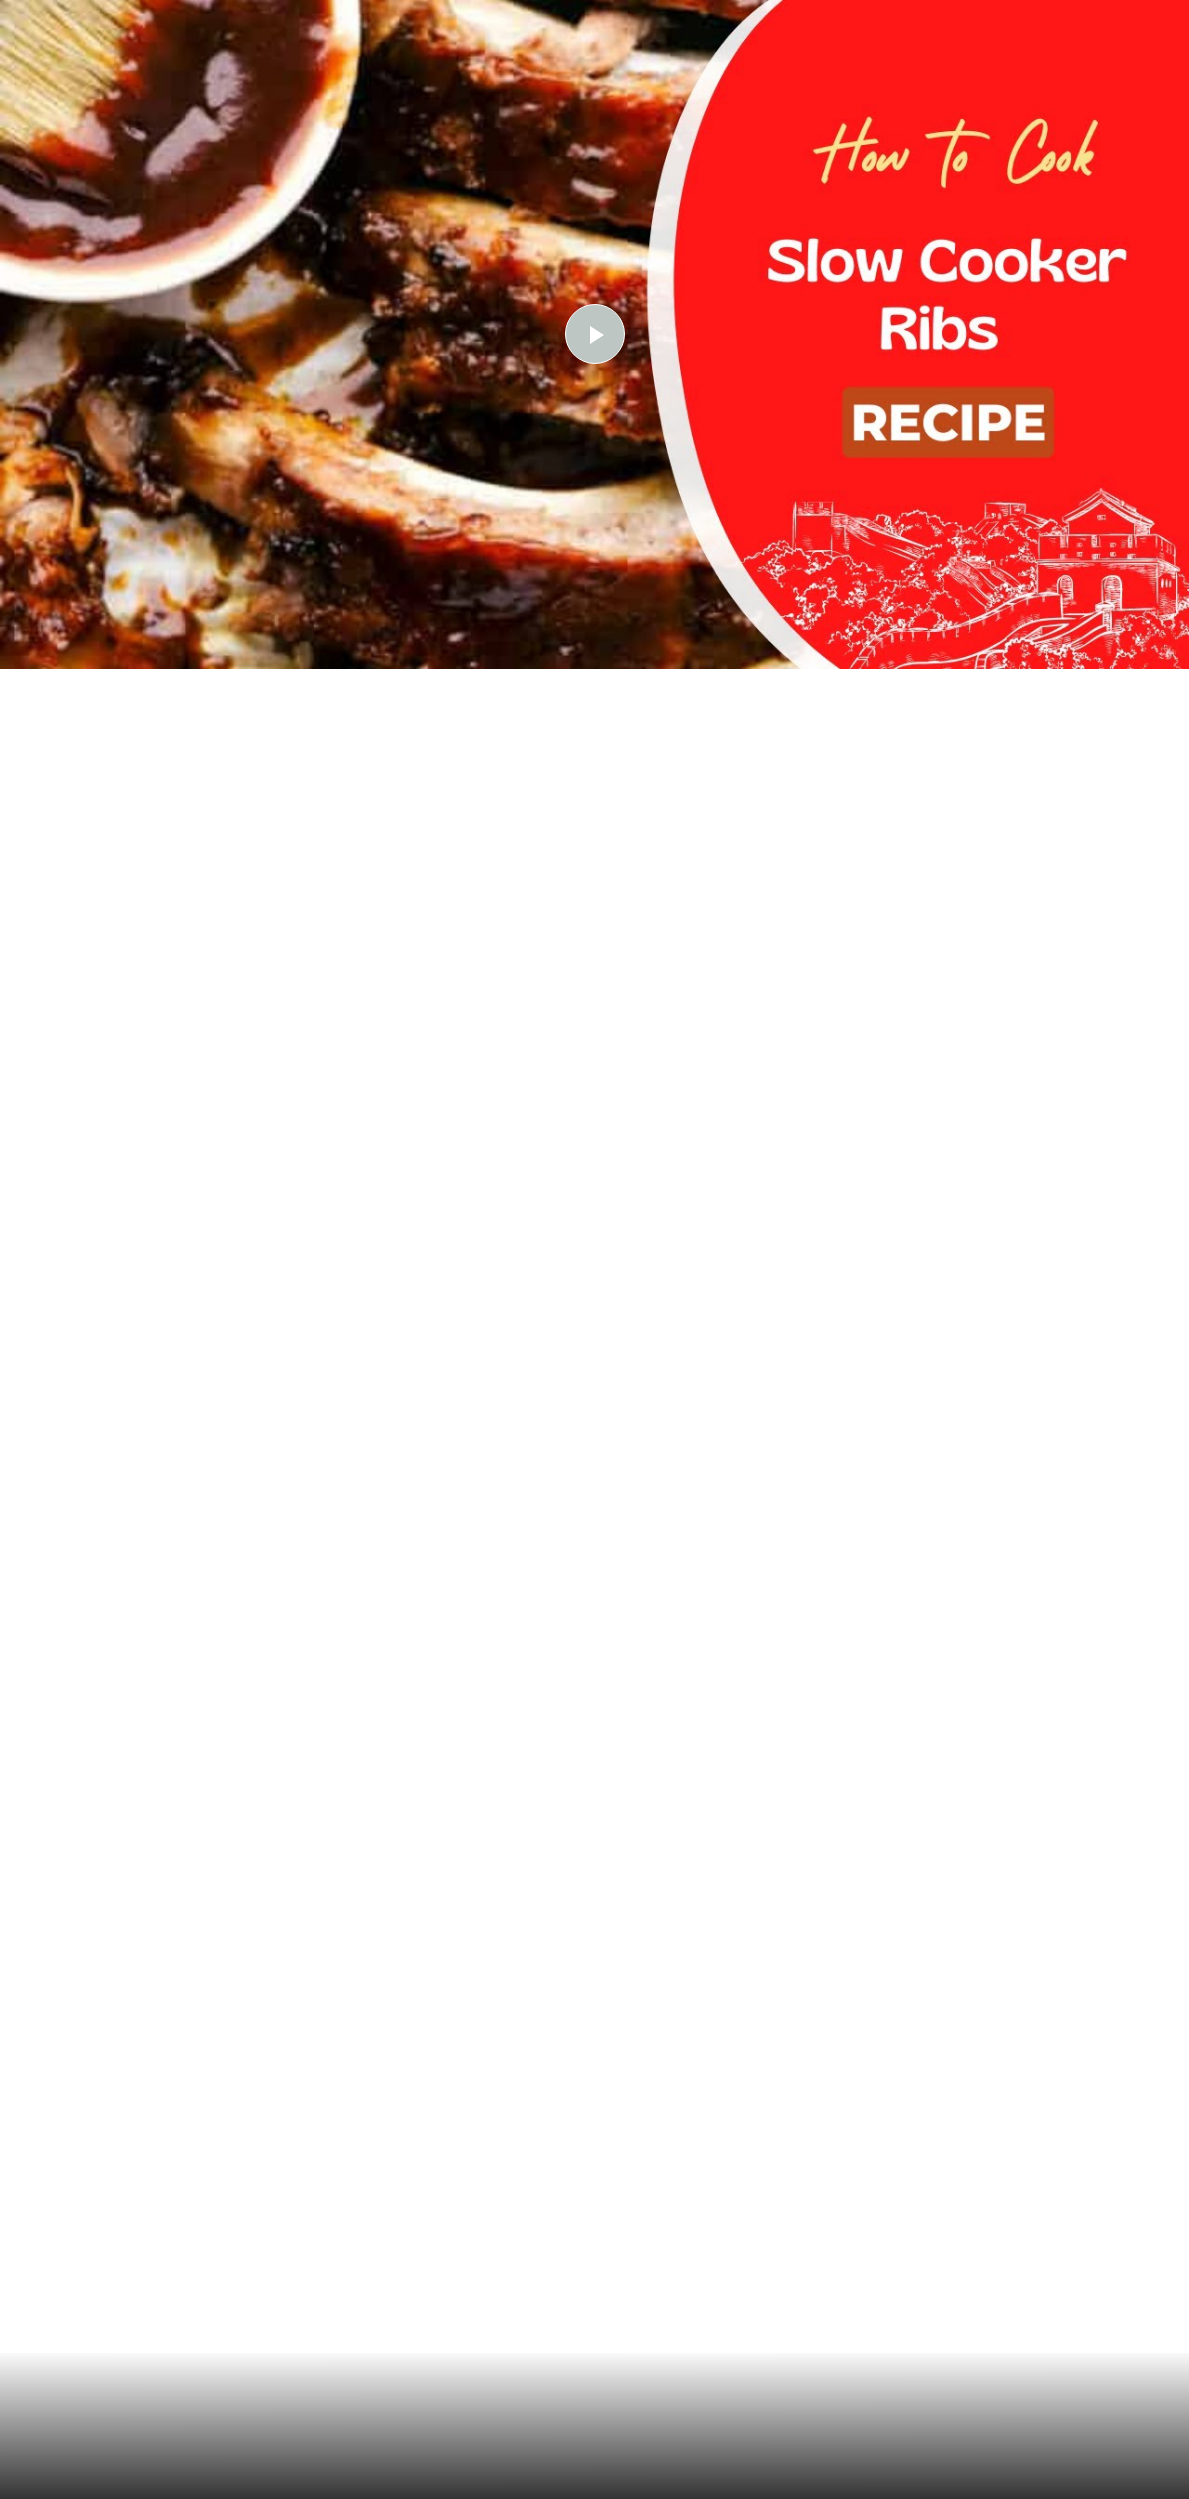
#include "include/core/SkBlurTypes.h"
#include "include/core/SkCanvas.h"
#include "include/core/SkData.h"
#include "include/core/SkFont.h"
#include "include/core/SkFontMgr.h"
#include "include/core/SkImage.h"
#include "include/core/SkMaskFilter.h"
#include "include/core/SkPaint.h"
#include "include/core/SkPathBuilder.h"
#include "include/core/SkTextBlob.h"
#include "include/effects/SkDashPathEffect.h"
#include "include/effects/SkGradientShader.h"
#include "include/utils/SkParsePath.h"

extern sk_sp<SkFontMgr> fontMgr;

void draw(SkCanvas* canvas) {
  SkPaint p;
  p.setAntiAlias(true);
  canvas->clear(SK_ColorWHITE);
  canvas->drawImageRect(SkImages::DeferredFromEncodedData(SkData::MakeFromFileName("images/1.png")), SkRect::MakeLTRB(0, 0, 1189, 669), SkSamplingOptions());
  p.setColor(SkColorSetRGB(190, 198, 196));
  canvas->drawCircle(595, 334, 29.5f, p);
  p.setStyle(SkPaint::kStroke_Style);
  p.setStrokeWidth(1);
  p.setColor(SK_ColorWHITE);
  canvas->drawCircle(595, 334, 29.5f, p);
  p.setStyle(SkPaint::kFill_Style);
  canvas->drawPath(SkPathBuilder().moveTo(590, 326).lineTo(590, 344).lineTo(604, 335).close().detach(), p);
  {
    const SkColor colors[] = {SkColorSetARGB(0, 0, 0, 0), SkColorSetARGB(0, 0, 0, 0), SkColorSetARGB(204, 0, 0, 0)};
    const float stops[] = {0, 0.94f, 1};
    const SkPoint ends[] = {{594, 0}, {595, 2499}};
    p.setShader(SkGradientShader::MakeLinear(ends, colors, stops, 3, SkTileMode::kClamp));
    p.setAlpha(255);
  }
  canvas->drawRect(SkRect::MakeLTRB(0, 2353, 1189, 2499), p);
}
